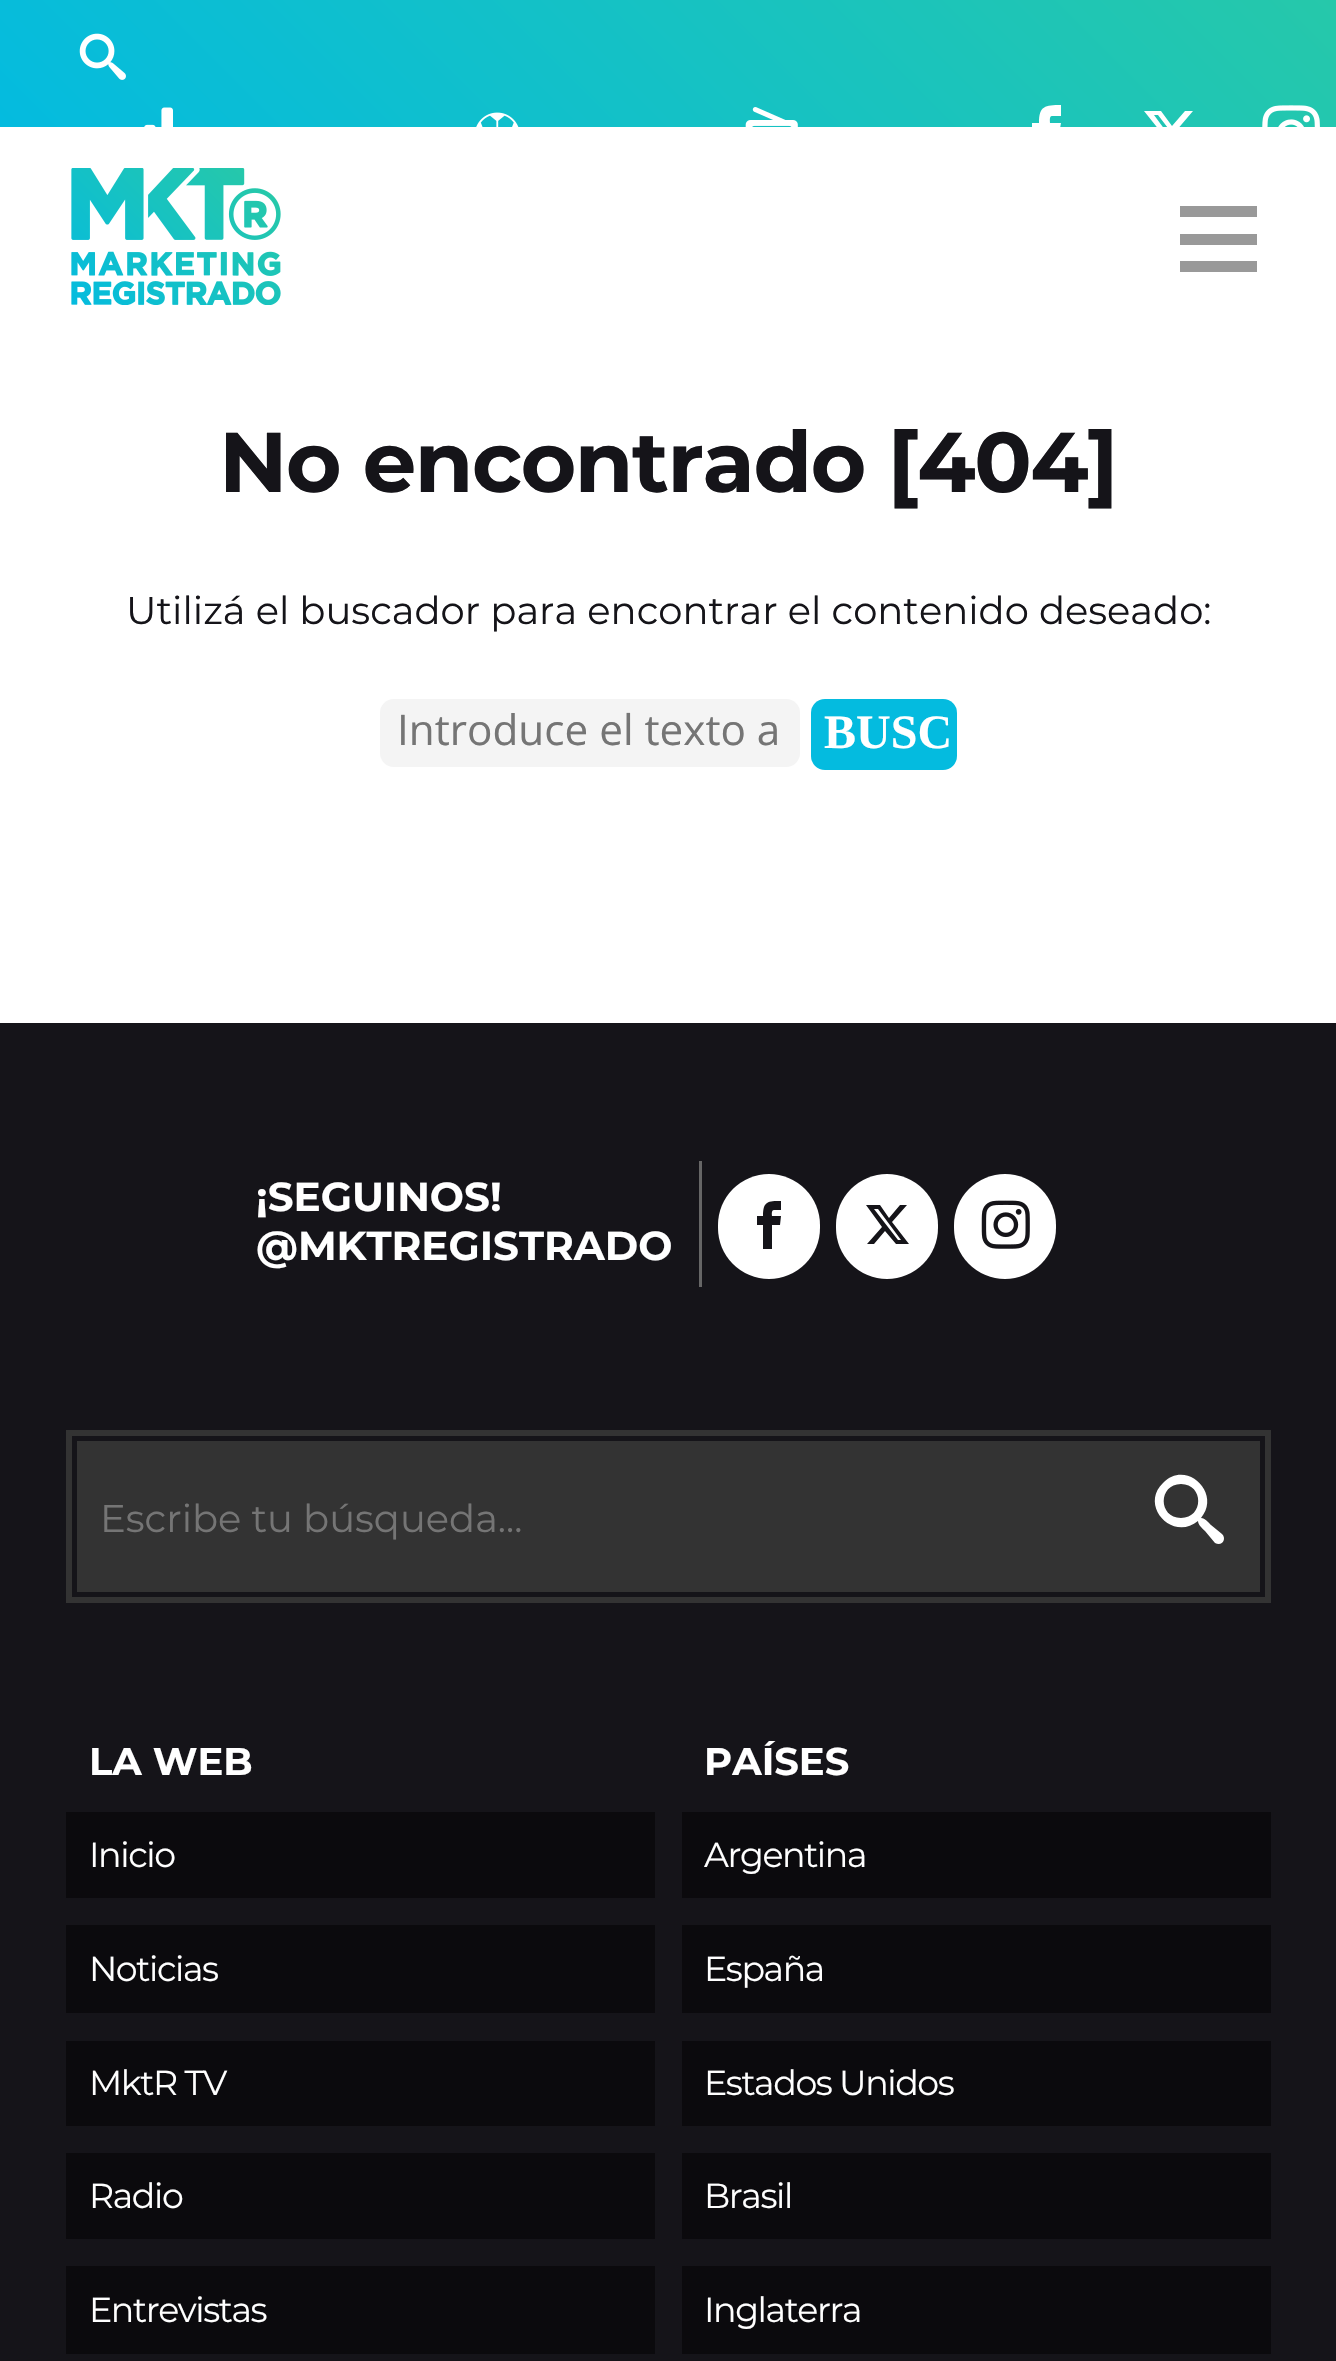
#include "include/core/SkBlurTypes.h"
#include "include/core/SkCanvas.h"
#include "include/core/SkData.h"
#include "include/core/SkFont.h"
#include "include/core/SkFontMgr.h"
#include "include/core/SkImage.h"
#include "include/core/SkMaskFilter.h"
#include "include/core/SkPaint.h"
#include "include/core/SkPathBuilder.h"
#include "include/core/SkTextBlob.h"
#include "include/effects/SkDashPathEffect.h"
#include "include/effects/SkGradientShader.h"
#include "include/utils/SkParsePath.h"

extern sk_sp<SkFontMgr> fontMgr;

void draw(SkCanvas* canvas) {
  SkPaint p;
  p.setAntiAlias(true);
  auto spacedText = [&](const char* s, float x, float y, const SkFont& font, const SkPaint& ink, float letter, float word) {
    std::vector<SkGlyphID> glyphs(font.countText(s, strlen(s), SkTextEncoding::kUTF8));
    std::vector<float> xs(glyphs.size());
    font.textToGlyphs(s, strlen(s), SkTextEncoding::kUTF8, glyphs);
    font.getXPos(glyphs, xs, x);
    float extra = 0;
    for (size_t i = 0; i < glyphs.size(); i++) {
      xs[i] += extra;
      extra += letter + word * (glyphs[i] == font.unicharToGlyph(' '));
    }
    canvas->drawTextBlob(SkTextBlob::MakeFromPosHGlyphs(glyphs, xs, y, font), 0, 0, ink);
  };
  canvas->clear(SK_ColorWHITE);
  {
    const SkColor colors[] = {SkColorSetRGB(4, 187, 223), SkColorSetRGB(38, 200, 170)};
    const float stops[] = {0, 1};
    const SkPoint ends[] = {{303, 429}, {1034, -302}};
    p.setShader(SkGradientShader::MakeLinear(ends, colors, stops, 2, SkTileMode::kClamp));
    p.setAlpha(255);
  }
  canvas->drawRect(SkRect::MakeLTRB(0, 0, 1336, 127), p);
  canvas->drawImageRect(SkImages::DeferredFromEncodedData(SkData::MakeFromFileName("images/1.png")), SkRect::MakeLTRB(79, 33, 126, 80), SkSamplingOptions());
  canvas->drawImageRect(SkImages::DeferredFromEncodedData(SkData::MakeFromFileName("images/2.png")), SkRect::MakeLTRB(144, 107, 173, 127), SkSamplingOptions());
  canvas->drawImageRect(SkImages::DeferredFromEncodedData(SkData::MakeFromFileName("images/3.png")), SkRect::MakeLTRB(476, 112, 519, 127), SkSamplingOptions());
  canvas->drawImageRect(SkImages::DeferredFromEncodedData(SkData::MakeFromFileName("images/4.png")), SkRect::MakeLTRB(745, 107, 798, 127), SkSamplingOptions());
  canvas->save();
  canvas->clipRect(SkRect::MakeLTRB(0, 0, 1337, 127));
  p.setShader(nullptr);
  p.setColor(SK_ColorWHITE);
  canvas->drawPath(SkPathBuilder().moveTo(1052, 116).lineTo(1061, 116).lineTo(1061, 105).cubicTo(1045, 105, 1039, 106, 1039, 123).lineTo(1032, 123).lineTo(1032, 134).lineTo(1039, 134).lineTo(1039, 163).lineTo(1050, 163).lineTo(1050, 134).lineTo(1059, 134).lineTo(1061, 123).lineTo(1050, 123).cubicTo(1050, 122, 1049, 116, 1052, 116).close().detach(), p);
  canvas->drawPath(SkPathBuilder().moveTo(1185, 111).lineTo(1193, 111).lineTo(1176, 131).lineTo(1196, 158).lineTo(1180, 158).lineTo(1168, 141).lineTo(1153, 158).lineTo(1145, 158).lineTo(1164, 136).lineTo(1144, 111).lineTo(1161, 111).lineTo(1172, 126).close().moveTo(1182, 153).lineTo(1187, 153).lineTo(1158, 115).lineTo(1154, 115).close().detach(), p);
  canvas->restore();
  canvas->drawImageRect(SkImages::DeferredFromEncodedData(SkData::MakeFromFileName("images/5.png")), SkRect::MakeLTRB(1262, 105, 1320, 127), SkSamplingOptions());
  canvas->drawImageRect(SkImages::DeferredFromEncodedData(SkData::MakeFromFileName("images/6.png")), SkRect::MakeLTRB(71, 168, 281, 305), SkSamplingOptions());
  p.setColor(SkColorSetRGB(153, 153, 153));
  canvas->drawRect(SkRect::MakeLTRB(1180, 206, 1257, 217), p);
  canvas->drawRect(SkRect::MakeLTRB(1180, 234, 1257, 245), p);
  canvas->drawRect(SkRect::MakeLTRB(1180, 261, 1257, 272), p);
  p.setColor(SkColorSetRGB(244, 244, 244));
  canvas->drawRoundRect(SkRect::MakeLTRB(380, 699, 800, 767), 14, 14, p);
  p.setColor(SkColorSetRGB(4, 187, 223));
  canvas->drawRoundRect(SkRect::MakeLTRB(811, 699, 957, 770), 14, 14, p);
  p.setColor(SkColorSetRGB(21, 20, 25));
  canvas->drawRect(SkRect::MakeLTRB(0, 1023, 1336, 2361), p);
  p.setColor(SkColorSetRGB(102, 102, 102));
  canvas->drawRect(SkRect::MakeLTRB(699, 1161, 702, 1287), p);
  p.setColor(SK_ColorWHITE);
  canvas->drawRoundRect(SkRect::MakeLTRB(718, 1174, 820, 1279), 51, 51, p);
  p.setColor(SkColorSetRGB(21, 20, 25));
  canvas->drawPath(SkPathBuilder().moveTo(774, 1210).lineTo(781, 1210).lineTo(781, 1201).cubicTo(768, 1201, 763, 1201, 763, 1216).lineTo(757, 1216).lineTo(757, 1225).lineTo(763, 1225).lineTo(763, 1249).lineTo(772, 1249).lineTo(772, 1225).lineTo(780, 1225).lineTo(781, 1216).lineTo(772, 1216).cubicTo(772, 1215, 771, 1210, 774, 1210).close().detach(), p);
  p.setColor(SK_ColorWHITE);
  canvas->drawRoundRect(SkRect::MakeLTRB(836, 1174, 938, 1279), 51, 51, p);
  p.setColor(SkColorSetRGB(21, 20, 25));
  canvas->drawPath(SkPathBuilder().moveTo(900, 1205).lineTo(907, 1205).lineTo(892, 1222).lineTo(909, 1244).lineTo(896, 1244).lineTo(885, 1231).lineTo(874, 1244).lineTo(867, 1244).lineTo(882, 1227).lineTo(866, 1205).lineTo(880, 1205).lineTo(889, 1218).close().moveTo(898, 1240).lineTo(901, 1240).lineTo(878, 1209).lineTo(874, 1209).close().detach(), p);
  p.setColor(SK_ColorWHITE);
  canvas->drawRoundRect(SkRect::MakeLTRB(954, 1174, 1056, 1279), 51, 51, p);
  canvas->drawImageRect(SkImages::DeferredFromEncodedData(SkData::MakeFromFileName("images/7.png")), SkRect::MakeLTRB(981, 1200, 1030, 1249), SkSamplingOptions());
  p.setStyle(SkPaint::kStroke_Style);
  p.setStrokeWidth(6);
  p.setColor(SkColorSetRGB(51, 51, 51));
  canvas->drawRect(SkRect::MakeLTRB(69, 1433, 1268, 1600), p);
  p.setStyle(SkPaint::kFill_Style);
  canvas->drawRect(SkRect::MakeLTRB(77, 1441, 1260, 1592), p);
  p.setColor(SK_ColorWHITE);
  canvas->drawPath(SkPathBuilder().moveTo(1222, 1534).lineTo(1211, 1525).cubicTo(1209, 1523, 1205, 1518, 1201, 1518).cubicTo(1222, 1493, 1186, 1459, 1163, 1483).cubicTo(1139, 1506, 1173, 1542, 1198, 1521).cubicTo(1198, 1525, 1203, 1529, 1205, 1531).lineTo(1215, 1543).cubicTo(1222, 1547, 1227, 1539, 1222, 1534).close().moveTo(1181, 1518).cubicTo(1158, 1518, 1158, 1484, 1181, 1484).cubicTo(1204, 1484, 1204, 1518, 1181, 1518).close().detach(), p);
  p.setColor(SkColorSetRGB(11, 10, 13));
  canvas->drawRect(SkRect::MakeLTRB(66, 1812, 655, 1898), p);
  canvas->drawRect(SkRect::MakeLTRB(66, 1925, 655, 2013), p);
  canvas->drawRect(SkRect::MakeLTRB(66, 2041, 655, 2126), p);
  canvas->drawRect(SkRect::MakeLTRB(66, 2153, 655, 2239), p);
  canvas->drawRect(SkRect::MakeLTRB(66, 2266, 655, 2354), p);
  canvas->drawRect(SkRect::MakeLTRB(682, 1812, 1271, 1898), p);
  canvas->drawRect(SkRect::MakeLTRB(682, 1925, 1271, 2013), p);
  canvas->drawRect(SkRect::MakeLTRB(682, 2041, 1271, 2126), p);
  canvas->drawRect(SkRect::MakeLTRB(682, 2153, 1271, 2239), p);
  canvas->drawRect(SkRect::MakeLTRB(682, 2266, 1271, 2354), p);
  SkFont font1(fontMgr->matchFamilyStyle("Montserrat", SkFontStyle::Bold()), 84.75f);
  font1.setSubpixel(true);
  p.setColor(SkColorSetRGB(21, 20, 25));
  spacedText("No encontrado [404]", 219, 492, font1, p, -1.4f, 0);
  SkFont font2(fontMgr->matchFamilyStyle("Montserrat", SkFontStyle::Normal()), 38.5f);
  font2.setSubpixel(true);
  canvas->drawString("Utilizá el buscador para encontrar el contenido deseado:", 126, 624, font2, p);
  SkFont font3(fontMgr->matchFamilyStyle("Open Sans", SkFontStyle::Normal()), 42.25f);
  font3.setSubpixel(true);
  p.setColor(SkColorSetRGB(117, 117, 117));
  canvas->drawString("Introduce el texto a", 397, 745, font3, p);
  SkFont font4(fontMgr->matchFamilyStyle("Liberation Serif", SkFontStyle::Bold()), 48);
  font4.setSubpixel(true);
  p.setColor(SK_ColorWHITE);
  canvas->drawString("BUSC", 824, 748, font4, p);
  SkFont font5(fontMgr->matchFamilyStyle("Montserrat", SkFontStyle::Bold()), 40.5f);
  font5.setSubpixel(true);
  canvas->drawString("¡SEGUINOS!", 256, 1211, font5, p);
  canvas->drawString("@MKTREGISTRADO", 256, 1260, font5, p);
  p.setColor(SkColorSetRGB(117, 117, 117));
  canvas->drawString("Escribe tu búsqueda...", 100, 1532, font2, p);
  SkFont font6(fontMgr->matchFamilyStyle("Montserrat", SkFontStyle::Bold()), 38.5f);
  font6.setSubpixel(true);
  p.setColor(SK_ColorWHITE);
  canvas->drawString("LA WEB", 89, 1775, font6, p);
  SkFont font7(fontMgr->matchFamilyStyle("Montserrat", SkFontStyle::Normal()), 34.75f);
  font7.setSubpixel(true);
  spacedText("Inicio", 89, 1867, font7, p, -1.4f, 0);
  spacedText("Noticias", 89, 1981, font7, p, -1.4f, 0);
  spacedText("MktR TV", 89, 2095, font7, p, -1.4f, 0);
  spacedText("Radio", 89, 2208, font7, p, -1.4f, 0);
  spacedText("Entrevistas", 89, 2322, font7, p, -1.4f, 0);
  canvas->save();
  canvas->clipRect(SkRect::MakeLTRB(682, 1741, 1271, 1785));
  canvas->drawString("PAÍSES", 704, 1775, font6, p);
  canvas->restore();
  spacedText("Argentina", 704, 1867, font7, p, -1.4f, 0);
  spacedText("España", 704, 1981, font7, p, -1.4f, 0);
  spacedText("Estados Unidos", 704, 2095, font7, p, -1.4f, 0);
  spacedText("Brasil", 704, 2208, font7, p, -1.4f, 0);
  spacedText("Inglaterra", 704, 2322, font7, p, -1.4f, 0);
}
